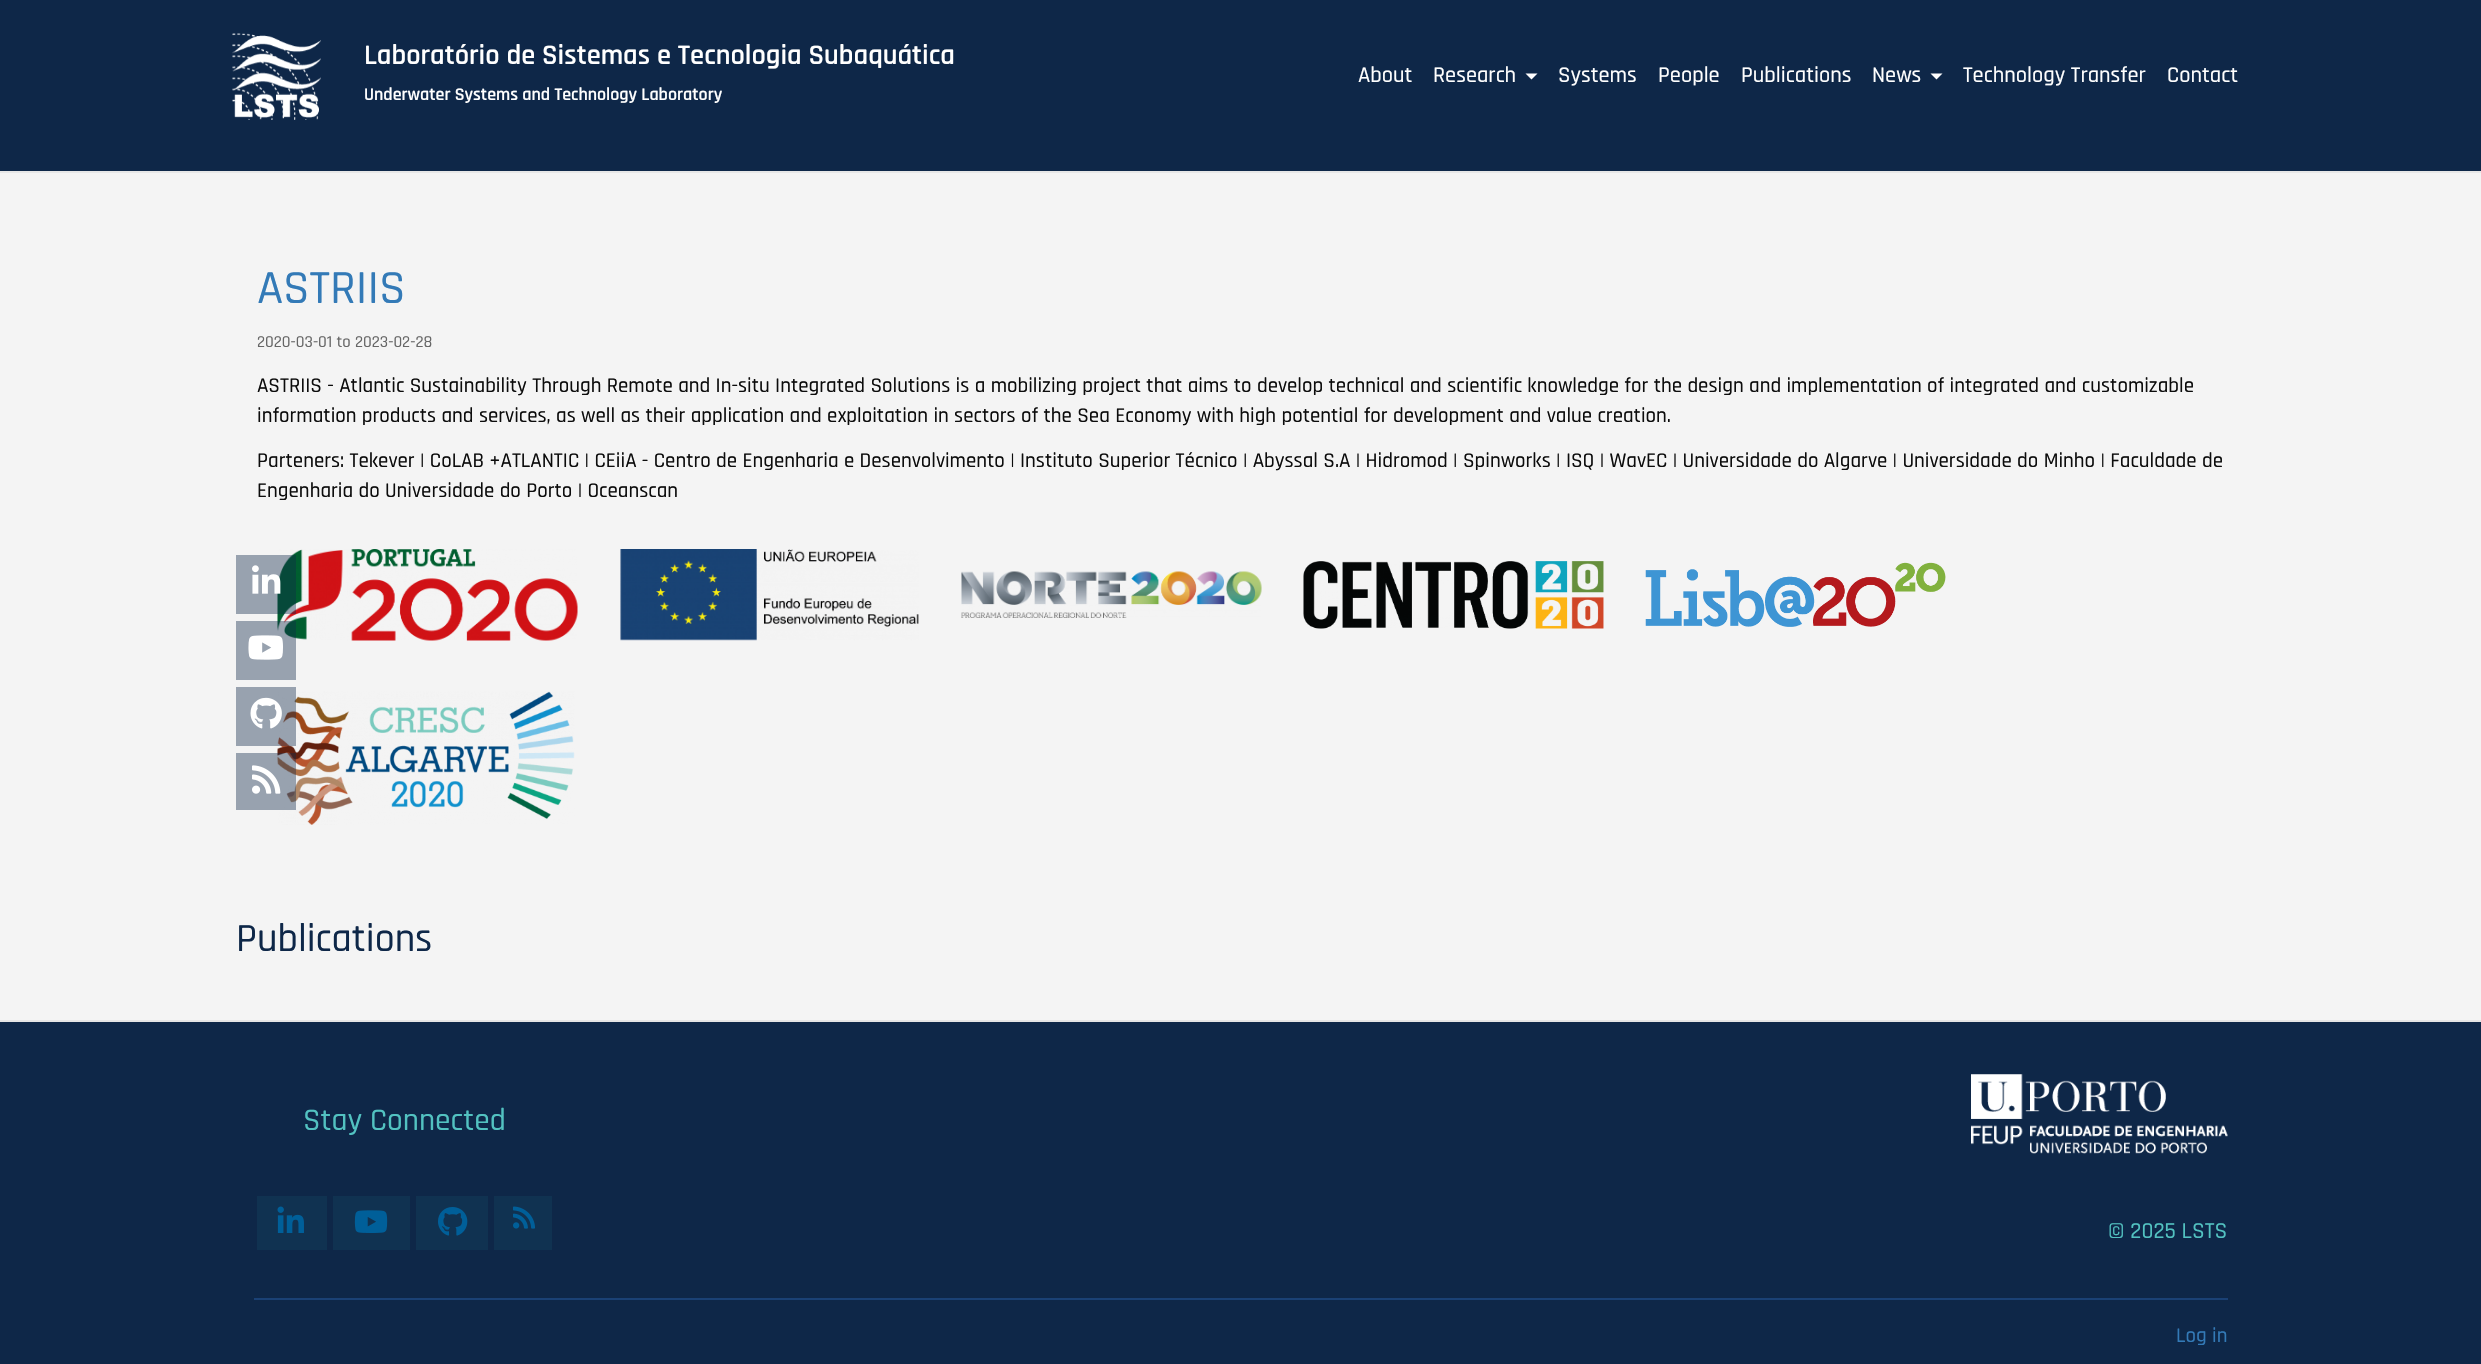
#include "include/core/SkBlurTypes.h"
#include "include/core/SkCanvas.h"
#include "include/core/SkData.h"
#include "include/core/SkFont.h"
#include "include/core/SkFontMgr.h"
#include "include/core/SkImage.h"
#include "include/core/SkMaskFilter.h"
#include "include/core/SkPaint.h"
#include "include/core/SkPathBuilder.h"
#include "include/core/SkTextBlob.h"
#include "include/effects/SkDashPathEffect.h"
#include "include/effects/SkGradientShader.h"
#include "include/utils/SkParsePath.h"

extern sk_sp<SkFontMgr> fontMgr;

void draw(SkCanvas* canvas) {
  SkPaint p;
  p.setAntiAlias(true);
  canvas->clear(SkColorSetRGB(244, 244, 244));
  p.setColor(SkColorSetRGB(14, 39, 72));
  canvas->drawRect(SkRect::MakeLTRB(0, 0, 2481, 171), p);
  p.setColor(SkColorSetRGB(231, 231, 231));
  canvas->drawRect(SkRect::MakeLTRB(0, 171, 2481, 173), p);
  canvas->drawImageRect(SkImages::DeferredFromEncodedData(SkData::MakeFromFileName("images/1.png")), SkRect::MakeLTRB(232, 33, 321, 120), SkSamplingOptions());
  p.setColor(SK_ColorWHITE);
  canvas->drawPath(SkPathBuilder().moveTo(1525.5f, 73.5f).lineTo(1537.5f, 73.5f).lineTo(1531.5f, 79.5f).close().detach(), p);
  canvas->drawPath(SkPathBuilder().moveTo(1930.5f, 73.5f).lineTo(1942.5f, 73.5f).lineTo(1936.5f, 79.5f).close().detach(), p);
  canvas->drawImageRect(SkImages::DeferredFromEncodedData(SkData::MakeFromFileName("images/2.png")), SkRect::MakeLTRB(277, 549, 578, 641), SkSamplingOptions());
  canvas->drawImageRect(SkImages::DeferredFromEncodedData(SkData::MakeFromFileName("images/3.png")), SkRect::MakeLTRB(620, 549, 919, 641), SkSamplingOptions());
  canvas->drawImageRect(SkImages::DeferredFromEncodedData(SkData::MakeFromFileName("images/4.png")), SkRect::MakeLTRB(961, 571, 1262, 618), SkSamplingOptions());
  canvas->drawImageRect(SkImages::DeferredFromEncodedData(SkData::MakeFromFileName("images/5.png")), SkRect::MakeLTRB(1303, 561, 1604, 629), SkSamplingOptions());
  canvas->drawImageRect(SkImages::DeferredFromEncodedData(SkData::MakeFromFileName("images/6.png")), SkRect::MakeLTRB(1645, 562, 1946, 627), SkSamplingOptions());
  canvas->drawImageRect(SkImages::DeferredFromEncodedData(SkData::MakeFromFileName("images/7.png")), SkRect::MakeLTRB(277, 691, 575, 825), SkSamplingOptions());
  p.setColor(SkColorSetARGB(102, 14, 39, 72));
  canvas->drawRect(SkRect::MakeLTRB(236, 555, 296, 614), p);
  canvas->drawImageRect(SkImages::DeferredFromEncodedData(SkData::MakeFromFileName("images/8.png")), SkRect::MakeLTRB(252, 565, 281, 594), SkSamplingOptions());
  canvas->drawRect(SkRect::MakeLTRB(236, 621, 296, 680), p);
  canvas->drawImageRect(SkImages::DeferredFromEncodedData(SkData::MakeFromFileName("images/9.png")), SkRect::MakeLTRB(248, 635, 283, 660), SkSamplingOptions());
  canvas->drawRect(SkRect::MakeLTRB(236, 687, 296, 746), p);
  canvas->drawImageRect(SkImages::DeferredFromEncodedData(SkData::MakeFromFileName("images/10.png")), SkRect::MakeLTRB(250, 697, 282, 729), SkSamplingOptions());
  canvas->drawRect(SkRect::MakeLTRB(236, 753, 296, 810), p);
  canvas->drawImageRect(SkImages::DeferredFromEncodedData(SkData::MakeFromFileName("images/11.png")), SkRect::MakeLTRB(252, 765, 281, 794), SkSamplingOptions());
  p.setColor(SkColorSetRGB(14, 39, 72));
  canvas->drawRect(SkRect::MakeLTRB(0, 1022, 2481, 1364), p);
  p.setColor(SkColorSetRGB(229, 229, 229));
  canvas->drawRect(SkRect::MakeLTRB(0, 1020, 2481, 1022), p);
  p.setColor(SkColorSetRGB(16, 50, 81));
  canvas->drawRect(SkRect::MakeLTRB(257, 1196, 327, 1250), p);
  canvas->drawImageRect(SkImages::DeferredFromEncodedData(SkData::MakeFromFileName("images/12.png")), SkRect::MakeLTRB(277, 1206, 304, 1233), SkSamplingOptions());
  canvas->drawRect(SkRect::MakeLTRB(333, 1196, 410, 1250), p);
  canvas->drawImageRect(SkImages::DeferredFromEncodedData(SkData::MakeFromFileName("images/13.png")), SkRect::MakeLTRB(354, 1210, 388, 1233), SkSamplingOptions());
  canvas->drawRect(SkRect::MakeLTRB(416, 1196, 488, 1250), p);
  canvas->drawImageRect(SkImages::DeferredFromEncodedData(SkData::MakeFromFileName("images/14.png")), SkRect::MakeLTRB(438, 1207, 468, 1236), SkSamplingOptions());
  canvas->drawRect(SkRect::MakeLTRB(494, 1196, 552, 1250), p);
  canvas->drawImageRect(SkImages::DeferredFromEncodedData(SkData::MakeFromFileName("images/15.png")), SkRect::MakeLTRB(513, 1206, 535, 1229), SkSamplingOptions());
  canvas->drawImageRect(SkImages::DeferredFromEncodedData(SkData::MakeFromFileName("images/16.png")), SkRect::MakeLTRB(1971, 1074, 2228, 1154), SkSamplingOptions());
  p.setColor(SkColorSetRGB(26, 65, 117));
  canvas->drawRect(SkRect::MakeLTRB(254, 1298, 2228, 1300), p);
  SkFont font1(fontMgr->matchFamilyStyle("Rajdhani", SkFontStyle(600, SkFontStyle::kNormal_Width, SkFontStyle::kUpright_Slant)), 28.5f);
  font1.setSubpixel(true);
  p.setColor(SK_ColorWHITE);
  canvas->drawString("Laboratório de Sistemas e Tecnologia Subaquática", 364, 64, font1, p);
  SkFont font2(fontMgr->matchFamilyStyle("Rajdhani", SkFontStyle(600, SkFontStyle::kNormal_Width, SkFontStyle::kUpright_Slant)), 18);
  font2.setSubpixel(true);
  canvas->drawString("Underwater Systems and Technology Laboratory", 364, 100, font2, p);
  SkFont font3(fontMgr->matchFamilyStyle("Rajdhani", SkFontStyle(500, SkFontStyle::kNormal_Width, SkFontStyle::kUpright_Slant)), 22.5f);
  font3.setSubpixel(true);
  canvas->drawString("About", 1358, 82, font3, p);
  canvas->drawString("Research", 1433, 82, font3, p);
  canvas->drawString("Systems", 1558, 82, font3, p);
  canvas->drawString("People", 1658, 82, font3, p);
  canvas->drawString("Publications", 1741, 82, font3, p);
  canvas->drawString("News", 1872, 82, font3, p);
  canvas->drawString("Technology Transfer", 1963, 82, font3, p);
  canvas->drawString("Contact", 2167, 82, font3, p);
  SkFont font4(fontMgr->matchFamilyStyle("Rajdhani", SkFontStyle(500, SkFontStyle::kNormal_Width, SkFontStyle::kUpright_Slant)), 48);
  font4.setSubpixel(true);
  p.setColor(SkColorSetRGB(51, 122, 183));
  canvas->drawString("ASTRIIS", 257, 303, font4, p);
  SkFont font5(fontMgr->matchFamilyStyle("Rajdhani", SkFontStyle(500, SkFontStyle::kNormal_Width, SkFontStyle::kUpright_Slant)), 16.75f);
  font5.setSubpixel(true);
  p.setColor(SkColorSetRGB(102, 102, 102));
  canvas->drawString("2020-03-01 to 2023-02-28", 257, 347, font5, p);
  SkFont font6(fontMgr->matchFamilyStyle("Rajdhani", SkFontStyle(500, SkFontStyle::kNormal_Width, SkFontStyle::kUpright_Slant)), 21);
  font6.setSubpixel(true);
  p.setColor(SkColorSetRGB(12, 12, 12));
  canvas->drawString("ASTRIIS - Atlantic Sustainability Through Remote and In-situ Integrated Solutions is a mobilizing project that aims to develop technical and scientific knowledge for the design and implementation of integrated and customizable", 257, 392, font6, p);
  canvas->drawString("information products and services, as well as their application and exploitation in sectors of the Sea Economy with high potential for development and value creation.", 257, 422, font6, p);
  canvas->drawString("Parteners: Tekever | CoLAB +ATLANTIC | CEiiA - Centro de Engenharia e Desenvolvimento | Instituto Superior Técnico | Abyssal S.A | Hidromod | Spinworks | ISQ | WavEC | Universidade do Algarve | Universidade do Minho | Faculdade de", 257, 467, font6, p);
  canvas->drawString("Engenharia do Universidade do Porto | Oceanscan", 257, 497, font6, p);
  SkFont font7(fontMgr->matchFamilyStyle("Rajdhani", SkFontStyle(500, SkFontStyle::kNormal_Width, SkFontStyle::kUpright_Slant)), 40);
  font7.setSubpixel(true);
  p.setColor(SkColorSetRGB(14, 39, 72));
  canvas->drawString("Publications", 236, 951, font7, p);
  SkFont font8(fontMgr->matchFamilyStyle("Rajdhani", SkFontStyle(500, SkFontStyle::kNormal_Width, SkFontStyle::kUpright_Slant)), 31.5f);
  font8.setSubpixel(true);
  p.setColor(SkColorSetRGB(82, 194, 193));
  canvas->drawString("Stay Connected", 303, 1130, font8, p);
  SkFont font9(fontMgr->matchFamilyStyle("Rajdhani", SkFontStyle(500, SkFontStyle::kNormal_Width, SkFontStyle::kUpright_Slant)), 23);
  font9.setSubpixel(true);
  canvas->drawString("© 2025 LSTS", 2108, 1238, font9, p);
  p.setColor(SkColorSetRGB(51, 122, 183));
  canvas->drawString("Log in", 2176, 1342, font6, p);
}
